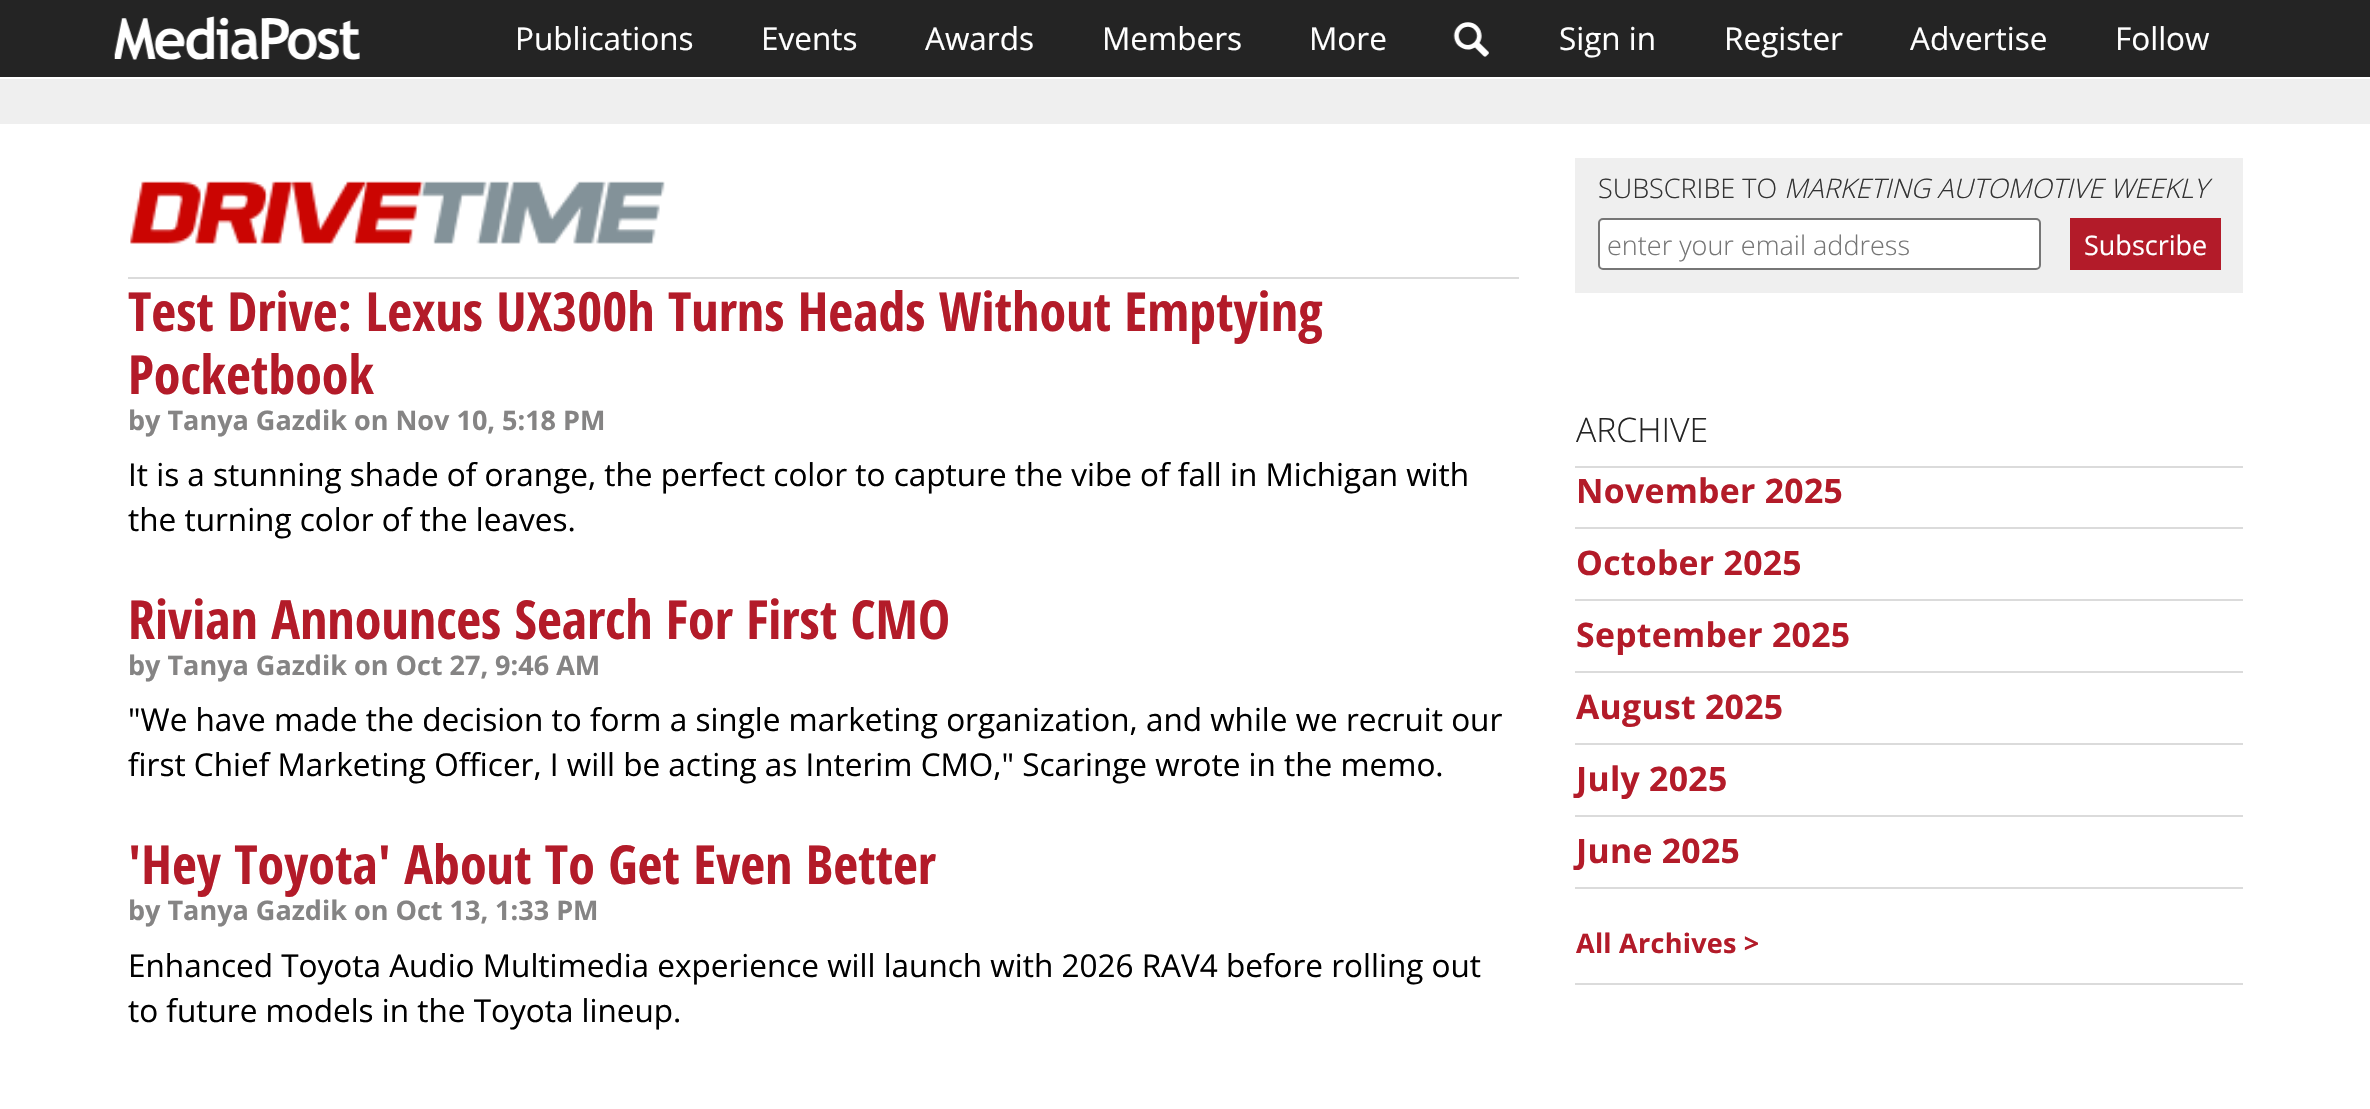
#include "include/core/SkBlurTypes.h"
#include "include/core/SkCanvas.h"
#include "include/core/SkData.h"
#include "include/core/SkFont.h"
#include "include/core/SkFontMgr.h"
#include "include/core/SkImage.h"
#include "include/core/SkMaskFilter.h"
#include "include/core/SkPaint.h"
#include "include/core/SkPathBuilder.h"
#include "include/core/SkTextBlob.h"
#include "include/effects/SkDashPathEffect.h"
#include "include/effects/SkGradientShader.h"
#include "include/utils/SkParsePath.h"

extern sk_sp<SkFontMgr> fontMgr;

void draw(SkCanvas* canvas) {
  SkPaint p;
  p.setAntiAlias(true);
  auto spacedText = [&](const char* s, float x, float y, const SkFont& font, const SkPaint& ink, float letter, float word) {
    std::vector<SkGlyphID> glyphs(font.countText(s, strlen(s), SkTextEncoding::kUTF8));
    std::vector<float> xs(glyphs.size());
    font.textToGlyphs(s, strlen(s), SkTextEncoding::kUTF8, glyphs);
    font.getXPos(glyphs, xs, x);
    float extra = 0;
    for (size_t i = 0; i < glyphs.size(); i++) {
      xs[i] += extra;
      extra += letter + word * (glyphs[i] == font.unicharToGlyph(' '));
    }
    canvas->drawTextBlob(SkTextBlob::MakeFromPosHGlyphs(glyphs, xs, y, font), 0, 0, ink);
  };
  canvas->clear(SK_ColorWHITE);
  p.setColor(SkColorSetRGB(36, 36, 36));
  canvas->drawRect(SkRect::MakeLTRB(0, 0, 2370, 77), p);
  canvas->drawImageRect(SkImages::DeferredFromEncodedData(SkData::MakeFromFileName("images/1.png")), SkRect::MakeLTRB(114, 16, 360, 60), SkSamplingOptions());
  canvas->drawImageRect(SkImages::DeferredFromEncodedData(SkData::MakeFromFileName("images/2.png")), SkRect::MakeLTRB(1453, 22, 1489, 57), SkSamplingOptions());
  p.setColor(SkColorSetRGB(239, 239, 239));
  canvas->drawRect(SkRect::MakeLTRB(0, 79, 2370, 124), p);
  p.setColor(SkColorSetRGB(219, 219, 219));
  canvas->drawRect(SkRect::MakeLTRB(128, 277, 1519, 279), p);
  canvas->drawImageRect(SkImages::DeferredFromEncodedData(SkData::MakeFromFileName("images/3.png")), SkRect::MakeLTRB(130, 181, 665, 244), SkSamplingOptions());
  p.setColor(SkColorSetRGB(239, 239, 239));
  canvas->drawRect(SkRect::MakeLTRB(1575, 158, 2243, 293), p);
  p.setColor(SK_ColorWHITE);
  canvas->drawRoundRect(SkRect::MakeLTRB(1599, 219, 2040, 269), 4, 4, p);
  p.setStyle(SkPaint::kStroke_Style);
  p.setStrokeWidth(2);
  p.setColor(SkColorSetRGB(118, 118, 118));
  canvas->drawRoundRect(SkRect::MakeLTRB(1599, 219, 2040, 269), 4, 4, p);
  p.setStyle(SkPaint::kFill_Style);
  p.setColor(SkColorSetRGB(179, 27, 41));
  canvas->drawRect(SkRect::MakeLTRB(2070, 218, 2221, 270), p);
  p.setColor(SkColorSetRGB(219, 219, 219));
  canvas->drawRect(SkRect::MakeLTRB(1575, 466, 2243, 468), p);
  canvas->drawRect(SkRect::MakeLTRB(1575, 527, 2243, 529), p);
  canvas->drawRect(SkRect::MakeLTRB(1575, 599, 2243, 601), p);
  canvas->drawRect(SkRect::MakeLTRB(1575, 671, 2243, 673), p);
  canvas->drawRect(SkRect::MakeLTRB(1575, 743, 2243, 745), p);
  canvas->drawRect(SkRect::MakeLTRB(1575, 815, 2243, 817), p);
  canvas->drawRect(SkRect::MakeLTRB(1575, 887, 2243, 889), p);
  canvas->drawRect(SkRect::MakeLTRB(1575, 983, 2243, 985), p);
  SkFont font1(fontMgr->matchFamilyStyle("Open Sans", SkFontStyle::Normal()), 31.5f);
  font1.setSubpixel(true);
  p.setColor(SK_ColorWHITE);
  canvas->drawString("Publications", 515, 50, font1, p);
  canvas->drawString("Events", 761, 50, font1, p);
  canvas->drawString("Awards", 925, 50, font1, p);
  canvas->drawString("Members", 1102, 50, font1, p);
  canvas->drawString("More", 1309, 50, font1, p);
  canvas->drawString("Sign in", 1559, 50, font1, p);
  canvas->drawString("Register", 1724, 50, font1, p);
  canvas->drawString("Advertise", 1910, 50, font1, p);
  canvas->drawString("Follow", 2115, 50, font1, p);
  SkFont font2(fontMgr->matchFamilyStyle("Open Sans Condensed", SkFontStyle::Bold()), 54);
  font2.setSubpixel(true);
  p.setColor(SkColorSetRGB(179, 27, 41));
  canvas->drawString("Test Drive: Lexus UX300h Turns Heads Without Emptying", 128, 331, font2, p);
  canvas->drawString("Pocketbook", 128, 394, font2, p);
  SkFont font3(fontMgr->matchFamilyStyle("Open Sans", SkFontStyle::Bold()), 27);
  font3.setSubpixel(true);
  p.setColor(SkColorSetRGB(133, 132, 132));
  canvas->drawString("by Tanya Gazdik on Nov 10, 5:18 PM", 128, 430, font3, p);
  p.setColor(SK_ColorBLACK);
  canvas->drawString("It is a stunning shade of orange, the perfect color to capture the vibe of fall in Michigan with", 128, 486, font1, p);
  canvas->drawString("the turning color of the leaves.", 128, 531, font1, p);
  p.setColor(SkColorSetRGB(179, 27, 41));
  canvas->drawString("Rivian Announces Search For First CMO", 128, 639, font2, p);
  p.setColor(SkColorSetRGB(133, 132, 132));
  canvas->drawString("by Tanya Gazdik on Oct 27, 9:46 AM", 128, 675, font3, p);
  p.setColor(SK_ColorBLACK);
  canvas->drawString("\"We have made the decision to form a single marketing organization, and while we recruit our", 128, 731, font1, p);
  canvas->drawString("first Chief Marketing Officer, I will be acting as Interim CMO,\" Scaringe wrote in the memo.", 128, 776, font1, p);
  p.setColor(SkColorSetRGB(179, 27, 41));
  canvas->drawString("'Hey Toyota' About To Get Even Better", 128, 884, font2, p);
  p.setColor(SkColorSetRGB(133, 132, 132));
  canvas->drawString("by Tanya Gazdik on Oct 13, 1:33 PM", 128, 920, font3, p);
  p.setColor(SK_ColorBLACK);
  canvas->drawString("Enhanced Toyota Audio Multimedia experience will launch with 2026 RAV4 before rolling out", 128, 977, font1, p);
  canvas->drawString("to future models in the Toyota lineup.", 128, 1022, font1, p);
  SkFont font4(fontMgr->matchFamilyStyle("Open Sans", SkFontStyle(300, SkFontStyle::kNormal_Width, SkFontStyle::kUpright_Slant)), 27);
  font4.setSubpixel(true);
  p.setColor(SkColorSetRGB(51, 51, 51));
  canvas->drawString("SUBSCRIBE TO", 1598, 198, font4, p);
  SkFont font5(fontMgr->matchFamilyStyle("Open Sans", SkFontStyle(300, SkFontStyle::kNormal_Width, SkFontStyle::kItalic_Slant)), 27);
  font5.setSubpixel(true);
  canvas->drawString("MARKETING AUTOMOTIVE WEEKLY", 1784, 198, font5, p);
  p.setColor(SkColorSetRGB(117, 117, 117));
  canvas->drawString("enter your email address", 1607, 255, font4, p);
  SkFont font6(fontMgr->matchFamilyStyle("Open Sans", SkFontStyle::Normal()), 27);
  font6.setSubpixel(true);
  p.setColor(SK_ColorWHITE);
  canvas->drawString("Subscribe", 2084, 255, font6, p);
  SkFont font7(fontMgr->matchFamilyStyle("Open Sans", SkFontStyle(300, SkFontStyle::kNormal_Width, SkFontStyle::kUpright_Slant)), 33.75f);
  font7.setSubpixel(true);
  p.setColor(SkColorSetRGB(36, 36, 36));
  canvas->drawString("ARCHIVE", 1576, 442, font7, p);
  SkFont font8(fontMgr->matchFamilyStyle("Open Sans", SkFontStyle::Bold()), 33.75f);
  font8.setSubpixel(true);
  p.setColor(SkColorSetRGB(179, 27, 41));
  spacedText("November 2025", 1576, 503, font8, p, 0.3f, 0);
  spacedText("October 2025", 1576, 575, font8, p, 0.3f, 0);
  spacedText("September 2025", 1576, 647, font8, p, 0.3f, 0);
  spacedText("August 2025", 1576, 719, font8, p, 0.3f, 0);
  spacedText("July 2025", 1576, 791, font8, p, 0.3f, 0);
  spacedText("June 2025", 1576, 863, font8, p, 0.3f, 0);
  spacedText("All Archives >", 1576, 953, font3, p, 0.25f, 0);
}
